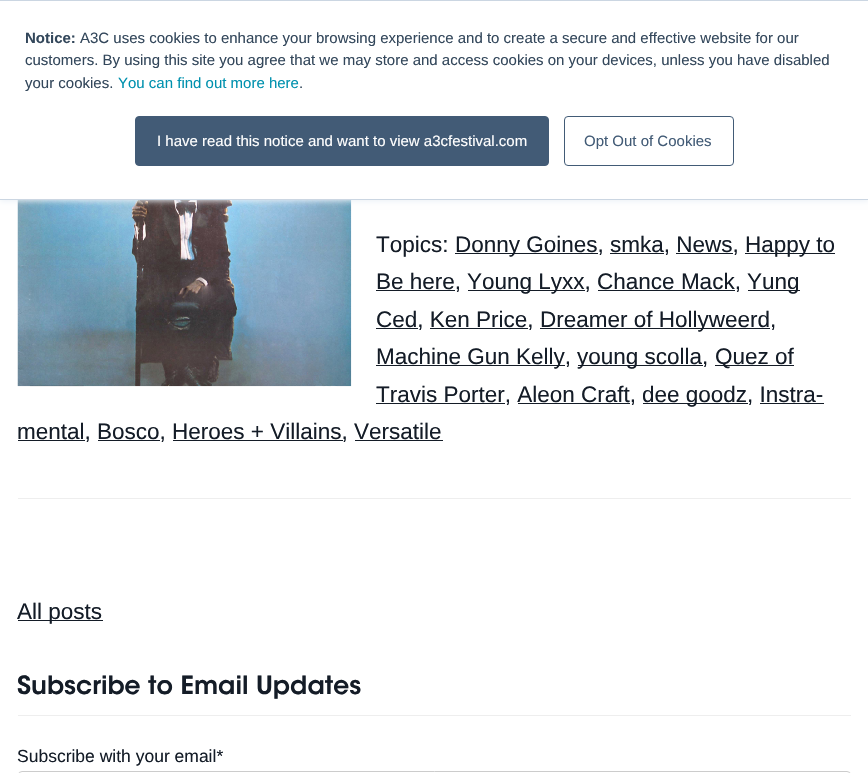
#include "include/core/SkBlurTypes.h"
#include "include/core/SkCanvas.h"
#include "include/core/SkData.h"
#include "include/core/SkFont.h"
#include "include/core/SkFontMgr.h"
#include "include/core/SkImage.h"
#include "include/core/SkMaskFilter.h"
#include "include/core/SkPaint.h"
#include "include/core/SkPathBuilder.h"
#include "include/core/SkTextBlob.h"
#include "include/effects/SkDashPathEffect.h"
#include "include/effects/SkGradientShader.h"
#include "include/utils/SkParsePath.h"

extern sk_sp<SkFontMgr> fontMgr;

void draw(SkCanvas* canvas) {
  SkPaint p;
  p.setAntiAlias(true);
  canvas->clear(SK_ColorWHITE);
  canvas->drawImageRect(SkImages::DeferredFromEncodedData(SkData::MakeFromFileName("images/1.png")), SkRect::MakeLTRB(17, 200, 352, 387), SkSamplingOptions());
  p.setColor(SkColorSetRGB(234, 240, 246));
  p.setMaskFilter(SkMaskFilter::MakeBlur(kNormal_SkBlurStyle, 3));
  canvas->drawRect(SkRect::MakeLTRB(0, 1, 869, 201), p);
  p.setMaskFilter(nullptr);
  p.setColor(SK_ColorWHITE);
  canvas->drawRect(SkRect::MakeLTRB(0, 1, 868, 199), p);
  p.setColor(SkColorSetRGB(203, 214, 226));
  canvas->drawRect(SkRect::MakeLTRB(0, 0, 868, 1), p);
  canvas->drawRect(SkRect::MakeLTRB(0, 199, 868, 200), p);
  p.setColor(SkColorSetRGB(66, 91, 118));
  canvas->drawRoundRect(SkRect::MakeLTRB(135.5f, 116.5f, 548.5f, 165.5f), 3.5f, 3.5f, p);
  p.setStyle(SkPaint::kStroke_Style);
  p.setStrokeWidth(1);
  canvas->drawRoundRect(SkRect::MakeLTRB(135.5f, 116.5f, 548.5f, 165.5f), 3.5f, 3.5f, p);
  canvas->drawRoundRect(SkRect::MakeLTRB(564.5f, 116.5f, 733.5f, 165.5f), 3.5f, 3.5f, p);
  p.setStyle(SkPaint::kFill_Style);
  p.setColor(SkColorSetRGB(238, 238, 238));
  canvas->drawRect(SkRect::MakeLTRB(18, 498, 851, 499), p);
  p.setColor(SkColorSetRGB(20, 28, 39));
  canvas->drawRect(SkRect::MakeLTRB(455, 253, 598, 254), p);
  canvas->drawRect(SkRect::MakeLTRB(745, 253, 835, 254), p);
  canvas->drawRect(SkRect::MakeLTRB(610, 253, 664, 254), p);
  canvas->drawRect(SkRect::MakeLTRB(676, 253, 733, 254), p);
  canvas->drawRect(SkRect::MakeLTRB(376, 290, 455, 291), p);
  canvas->drawRect(SkRect::MakeLTRB(468, 290, 585, 291), p);
  canvas->drawRect(SkRect::MakeLTRB(748, 290, 800, 291), p);
  canvas->drawRect(SkRect::MakeLTRB(598, 290, 735, 291), p);
  canvas->drawRect(SkRect::MakeLTRB(376, 328, 418, 329), p);
  canvas->drawRect(SkRect::MakeLTRB(540, 328, 770, 329), p);
  canvas->drawRect(SkRect::MakeLTRB(430, 328, 528, 329), p);
  canvas->drawRect(SkRect::MakeLTRB(376, 365, 565, 366), p);
  canvas->drawRect(SkRect::MakeLTRB(578, 365, 703, 366), p);
  canvas->drawRect(SkRect::MakeLTRB(715, 365, 794, 366), p);
  canvas->drawRect(SkRect::MakeLTRB(376, 403, 505, 404), p);
  canvas->drawRect(SkRect::MakeLTRB(643, 403, 748, 404), p);
  canvas->drawRect(SkRect::MakeLTRB(518, 403, 630, 404), p);
  canvas->drawRect(SkRect::MakeLTRB(760, 403, 824, 404), p);
  canvas->drawRect(SkRect::MakeLTRB(18, 440, 85, 441), p);
  canvas->drawRect(SkRect::MakeLTRB(98, 440, 160, 441), p);
  canvas->drawRect(SkRect::MakeLTRB(173, 440, 343, 441), p);
  canvas->drawRect(SkRect::MakeLTRB(355, 440, 443, 441), p);
  canvas->drawRect(SkRect::MakeLTRB(18, 620, 103, 621), p);
  p.setColor(SkColorSetRGB(238, 238, 238));
  canvas->drawRect(SkRect::MakeLTRB(18, 715, 851, 716), p);
  p.setStyle(SkPaint::kStroke_Style);
  p.setColor(SkColorSetRGB(204, 204, 204));
  canvas->drawRoundRect(SkRect::MakeLTRB(18.5f, 771.5f, 850.5f, 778.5f), 4.5f, 4.5f, p);
  SkFont font1(fontMgr->matchFamilyStyle("Liberation Sans", SkFontStyle::Bold()), 15);
  font1.setSubpixel(true);
  p.setStyle(SkPaint::kFill_Style);
  p.setColor(SkColorSetRGB(51, 71, 91));
  canvas->drawString("Notice:", 25, 43, font1, p);
  SkFont font2(fontMgr->matchFamilyStyle("Liberation Sans", SkFontStyle::Normal()), 15);
  font2.setSubpixel(true);
  canvas->drawString("A3C uses cookies to enhance your browsing experience and to create a secure and effective website for our", 80, 43, font2, p);
  canvas->drawString("customers. By using this site you agree that we may store and access cookies on your devices, unless you have disabled", 25, 65, font2, p);
  canvas->drawString("your cookies.", 25, 88, font2, p);
  p.setColor(SkColorSetRGB(0, 145, 174));
  canvas->drawString("You can find out more here", 118, 88, font2, p);
  p.setColor(SkColorSetRGB(51, 71, 91));
  canvas->drawString(".", 299, 88, font2, p);
  p.setColor(SK_ColorWHITE);
  canvas->drawString("I have read this notice and want to view a3cfestival.com", 157, 146, font2, p);
  p.setColor(SkColorSetRGB(66, 91, 118));
  canvas->drawString("Opt Out of Cookies", 584, 146, font2, p);
  SkFont font3(fontMgr->matchFamilyStyle("Liberation Sans", SkFontStyle::Normal()), 22.5f);
  font3.setSubpixel(true);
  p.setColor(SkColorSetRGB(20, 28, 39));
  canvas->drawString("Topics:", 376, 252, font3, p);
  canvas->drawString("Donny Goines, smka, News,", 455, 252, font3, p);
  canvas->drawString("Happy to", 745, 252, font3, p);
  canvas->drawString("Be here,", 376, 289, font3, p);
  canvas->drawString("Young Lyxx, Chance Mack,", 467, 289, font3, p);
  canvas->drawString("Yung", 747, 289, font3, p);
  canvas->drawString("Ced, Ken Price,", 376, 327, font3, p);
  canvas->drawString("Dreamer of Hollyweerd,", 540, 327, font3, p);
  canvas->drawString("Machine Gun Kelly,", 376, 364, font3, p);
  canvas->drawString("young scolla,", 577, 364, font3, p);
  canvas->drawString("Quez of", 715, 364, font3, p);
  canvas->drawString("Travis Porter, Aleon Craft,", 376, 402, font3, p);
  canvas->drawString("dee goodz, Instra-", 642, 402, font3, p);
  canvas->drawString("mental, Bosco, Heroes + Villains, Versatile", 17, 439, font3, p);
  canvas->drawString("All posts", 17, 619, font3, p);
  SkFont font4(fontMgr->matchFamilyStyle("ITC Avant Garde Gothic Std", SkFontStyle(600, SkFontStyle::kNormal_Width, SkFontStyle::kUpright_Slant)), 25);
  font4.setSubpixel(true);
  canvas->drawString("Subscribe to Email Updates", 17, 694, font4, p);
  SkFont font5(fontMgr->matchFamilyStyle("Liberation Sans", SkFontStyle::Normal()), 17.5f);
  font5.setSubpixel(true);
  canvas->drawString("Subscribe with your email*", 17, 762, font5, p);
}
